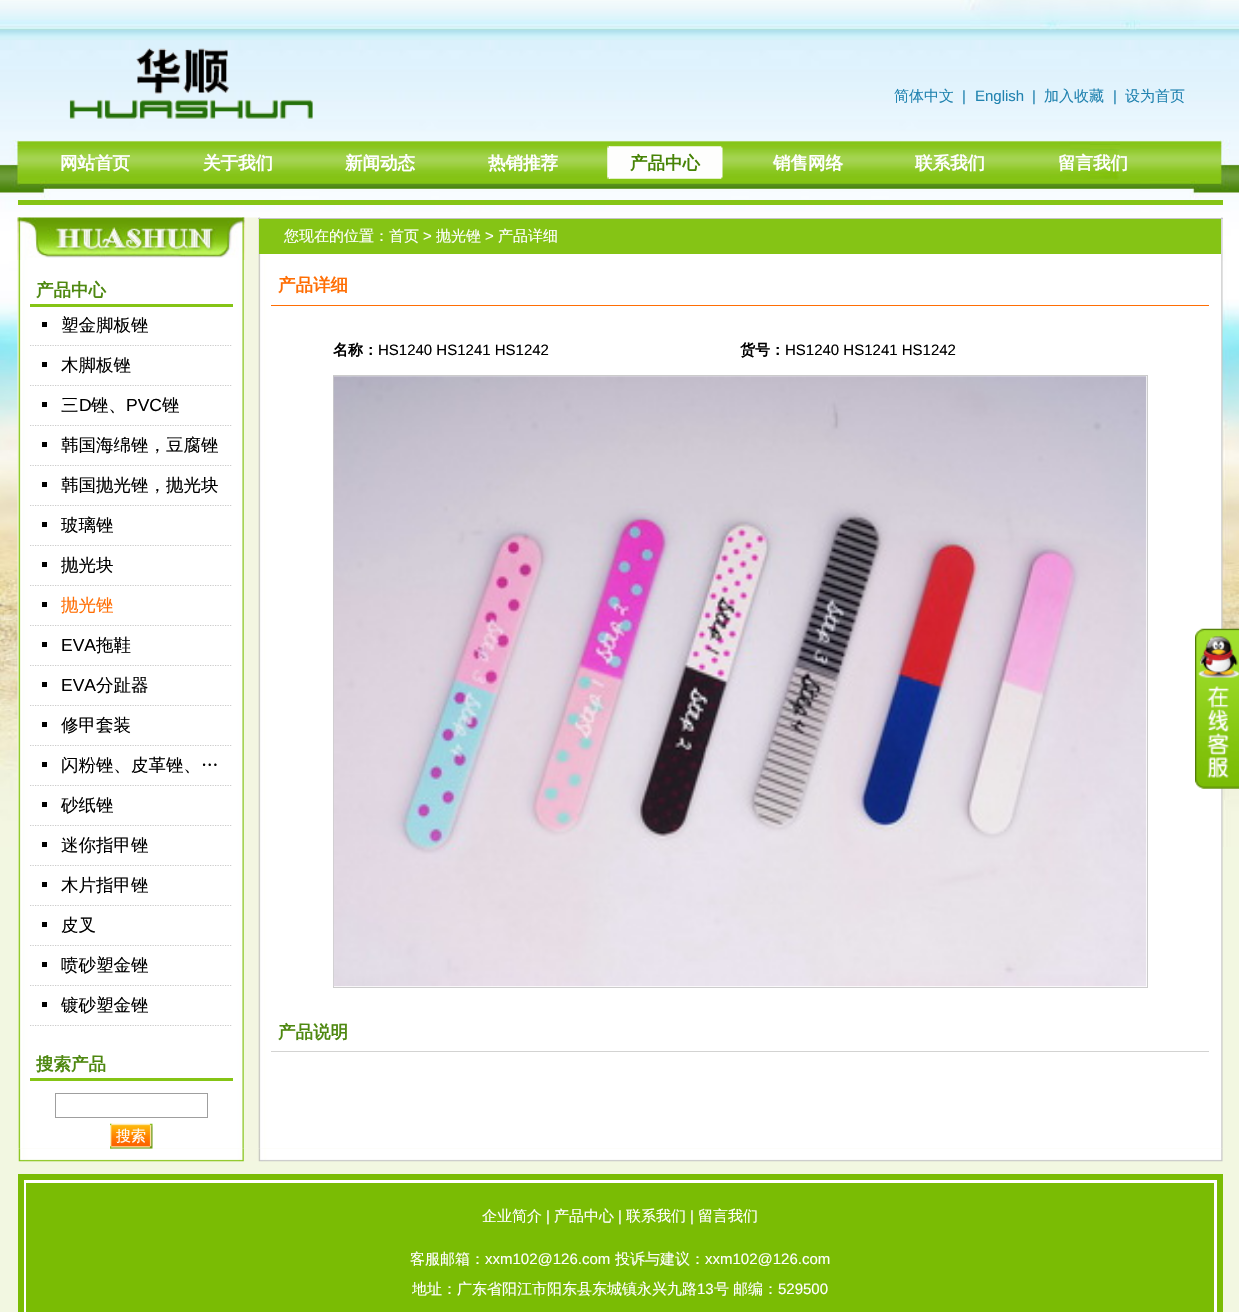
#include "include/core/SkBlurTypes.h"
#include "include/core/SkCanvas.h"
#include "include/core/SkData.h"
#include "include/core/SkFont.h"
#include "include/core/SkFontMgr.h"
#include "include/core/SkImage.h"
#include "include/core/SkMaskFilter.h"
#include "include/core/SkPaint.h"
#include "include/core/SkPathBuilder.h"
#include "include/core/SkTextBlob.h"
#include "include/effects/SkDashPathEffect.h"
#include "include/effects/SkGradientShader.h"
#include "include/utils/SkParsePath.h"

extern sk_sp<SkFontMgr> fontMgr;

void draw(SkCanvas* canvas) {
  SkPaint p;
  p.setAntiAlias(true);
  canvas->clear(SkColorSetRGB(242, 247, 225));
  canvas->drawImageRect(SkImages::DeferredFromEncodedData(SkData::MakeFromFileName("images/1.png")), SkRect::MakeLTRB(0, 0, 1239, 847), SkSamplingOptions());
  canvas->drawImageRect(SkImages::DeferredFromEncodedData(SkData::MakeFromFileName("images/2.png")), SkRect::MakeLTRB(69, 48, 313, 119), SkSamplingOptions());
  canvas->drawImageRect(SkImages::DeferredFromEncodedData(SkData::MakeFromFileName("images/3.png")), SkRect::MakeLTRB(607, 146, 723, 179), SkSamplingOptions());
  canvas->drawImageRect(SkImages::DeferredFromEncodedData(SkData::MakeFromFileName("images/4.png")), SkRect::MakeLTRB(607, 146, 611, 179), SkSamplingOptions());
  p.setColor(SkColorSetRGB(133, 196, 21));
  canvas->drawRect(SkRect::MakeLTRB(18, 200, 1223, 205), p);
  canvas->drawImageRect(SkImages::DeferredFromEncodedData(SkData::MakeFromFileName("images/5.png")), SkRect::MakeLTRB(17, 217, 1223, 1149), SkSamplingOptions());
  canvas->drawImageRect(SkImages::DeferredFromEncodedData(SkData::MakeFromFileName("images/6.png")), SkRect::MakeLTRB(17, 217, 245, 260), SkSamplingOptions());
  canvas->drawRect(SkRect::MakeLTRB(30, 304, 233, 307), p);
  p.setColor(SkColorSetRGB(1, 1, 1));
  canvas->drawRect(SkRect::MakeLTRB(42, 322, 47, 327), p);
  p.setStyle(SkPaint::kStroke_Style);
  p.setStrokeWidth(1.2f);
  p.setColor(SkColorSetRGB(204, 204, 204));
  p.setPathEffect(SkDashPathEffect::Make({{1.25f, 1.25f}}, 0));
  canvas->drawPath(SkPathBuilder().moveTo(30, 345.5f).lineTo(232.5f, 345.5f).detach(), p);
  p.setPathEffect(nullptr);
  p.setStyle(SkPaint::kFill_Style);
  p.setColor(SkColorSetRGB(1, 1, 1));
  canvas->drawRect(SkRect::MakeLTRB(42, 362, 47, 367), p);
  p.setStyle(SkPaint::kStroke_Style);
  p.setColor(SkColorSetRGB(204, 204, 204));
  p.setPathEffect(SkDashPathEffect::Make({{1.25f, 1.25f}}, 0));
  canvas->drawPath(SkPathBuilder().moveTo(30, 385.5f).lineTo(232.5f, 385.5f).detach(), p);
  p.setPathEffect(nullptr);
  p.setStyle(SkPaint::kFill_Style);
  p.setColor(SkColorSetRGB(1, 1, 1));
  canvas->drawRect(SkRect::MakeLTRB(42, 402, 47, 407), p);
  p.setStyle(SkPaint::kStroke_Style);
  p.setColor(SkColorSetRGB(204, 204, 204));
  p.setPathEffect(SkDashPathEffect::Make({{1.25f, 1.25f}}, 0));
  canvas->drawPath(SkPathBuilder().moveTo(30, 425.5f).lineTo(232.5f, 425.5f).detach(), p);
  p.setPathEffect(nullptr);
  p.setStyle(SkPaint::kFill_Style);
  p.setColor(SkColorSetRGB(1, 1, 1));
  canvas->drawRect(SkRect::MakeLTRB(42, 442, 47, 447), p);
  p.setStyle(SkPaint::kStroke_Style);
  p.setColor(SkColorSetRGB(204, 204, 204));
  p.setPathEffect(SkDashPathEffect::Make({{1.25f, 1.25f}}, 0));
  canvas->drawPath(SkPathBuilder().moveTo(30, 465.5f).lineTo(232.5f, 465.5f).detach(), p);
  p.setPathEffect(nullptr);
  p.setStyle(SkPaint::kFill_Style);
  p.setColor(SkColorSetRGB(1, 1, 1));
  canvas->drawRect(SkRect::MakeLTRB(42, 482, 47, 487), p);
  p.setStyle(SkPaint::kStroke_Style);
  p.setColor(SkColorSetRGB(204, 204, 204));
  p.setPathEffect(SkDashPathEffect::Make({{1.25f, 1.25f}}, 0));
  canvas->drawPath(SkPathBuilder().moveTo(30, 505.5f).lineTo(232.5f, 505.5f).detach(), p);
  p.setPathEffect(nullptr);
  p.setStyle(SkPaint::kFill_Style);
  p.setColor(SkColorSetRGB(1, 1, 1));
  canvas->drawRect(SkRect::MakeLTRB(42, 522, 47, 527), p);
  p.setStyle(SkPaint::kStroke_Style);
  p.setColor(SkColorSetRGB(204, 204, 204));
  p.setPathEffect(SkDashPathEffect::Make({{1.25f, 1.25f}}, 0));
  canvas->drawPath(SkPathBuilder().moveTo(30, 545.5f).lineTo(232.5f, 545.5f).detach(), p);
  p.setPathEffect(nullptr);
  p.setStyle(SkPaint::kFill_Style);
  p.setColor(SkColorSetRGB(1, 1, 1));
  canvas->drawRect(SkRect::MakeLTRB(42, 562, 47, 567), p);
  p.setStyle(SkPaint::kStroke_Style);
  p.setColor(SkColorSetRGB(204, 204, 204));
  p.setPathEffect(SkDashPathEffect::Make({{1.25f, 1.25f}}, 0));
  canvas->drawPath(SkPathBuilder().moveTo(30, 585.5f).lineTo(232.5f, 585.5f).detach(), p);
  p.setPathEffect(nullptr);
  p.setStyle(SkPaint::kFill_Style);
  p.setColor(SkColorSetRGB(1, 1, 1));
  canvas->drawRect(SkRect::MakeLTRB(42, 602, 47, 607), p);
  p.setStyle(SkPaint::kStroke_Style);
  p.setColor(SkColorSetRGB(204, 204, 204));
  p.setPathEffect(SkDashPathEffect::Make({{1.25f, 1.25f}}, 0));
  canvas->drawPath(SkPathBuilder().moveTo(30, 625.5f).lineTo(232.5f, 625.5f).detach(), p);
  p.setPathEffect(nullptr);
  p.setStyle(SkPaint::kFill_Style);
  p.setColor(SkColorSetRGB(1, 1, 1));
  canvas->drawRect(SkRect::MakeLTRB(42, 642, 47, 647), p);
  p.setStyle(SkPaint::kStroke_Style);
  p.setColor(SkColorSetRGB(204, 204, 204));
  p.setPathEffect(SkDashPathEffect::Make({{1.25f, 1.25f}}, 0));
  canvas->drawPath(SkPathBuilder().moveTo(30, 665.5f).lineTo(232.5f, 665.5f).detach(), p);
  p.setPathEffect(nullptr);
  p.setStyle(SkPaint::kFill_Style);
  p.setColor(SkColorSetRGB(1, 1, 1));
  canvas->drawRect(SkRect::MakeLTRB(42, 682, 47, 687), p);
  p.setStyle(SkPaint::kStroke_Style);
  p.setColor(SkColorSetRGB(204, 204, 204));
  p.setPathEffect(SkDashPathEffect::Make({{1.25f, 1.25f}}, 0));
  canvas->drawPath(SkPathBuilder().moveTo(30, 705.5f).lineTo(232.5f, 705.5f).detach(), p);
  p.setPathEffect(nullptr);
  p.setStyle(SkPaint::kFill_Style);
  p.setColor(SkColorSetRGB(1, 1, 1));
  canvas->drawRect(SkRect::MakeLTRB(42, 722, 47, 727), p);
  p.setStyle(SkPaint::kStroke_Style);
  p.setColor(SkColorSetRGB(204, 204, 204));
  p.setPathEffect(SkDashPathEffect::Make({{1.25f, 1.25f}}, 0));
  canvas->drawPath(SkPathBuilder().moveTo(30, 745.5f).lineTo(232.5f, 745.5f).detach(), p);
  p.setPathEffect(nullptr);
  p.setStyle(SkPaint::kFill_Style);
  p.setColor(SkColorSetRGB(1, 1, 1));
  canvas->drawRect(SkRect::MakeLTRB(42, 762, 47, 767), p);
  p.setStyle(SkPaint::kStroke_Style);
  p.setColor(SkColorSetRGB(204, 204, 204));
  p.setPathEffect(SkDashPathEffect::Make({{1.25f, 1.25f}}, 0));
  canvas->drawPath(SkPathBuilder().moveTo(30, 785.5f).lineTo(232.5f, 785.5f).detach(), p);
  p.setPathEffect(nullptr);
  p.setStyle(SkPaint::kFill_Style);
  p.setColor(SkColorSetRGB(1, 1, 1));
  canvas->drawRect(SkRect::MakeLTRB(42, 802, 47, 807), p);
  p.setStyle(SkPaint::kStroke_Style);
  p.setColor(SkColorSetRGB(204, 204, 204));
  p.setPathEffect(SkDashPathEffect::Make({{1.25f, 1.25f}}, 0));
  canvas->drawPath(SkPathBuilder().moveTo(30, 825.5f).lineTo(232.5f, 825.5f).detach(), p);
  p.setPathEffect(nullptr);
  p.setStyle(SkPaint::kFill_Style);
  p.setColor(SkColorSetRGB(1, 1, 1));
  canvas->drawRect(SkRect::MakeLTRB(42, 842, 47, 847), p);
  p.setStyle(SkPaint::kStroke_Style);
  p.setColor(SkColorSetRGB(204, 204, 204));
  p.setPathEffect(SkDashPathEffect::Make({{1.25f, 1.25f}}, 0));
  canvas->drawPath(SkPathBuilder().moveTo(30, 865.5f).lineTo(232.5f, 865.5f).detach(), p);
  p.setPathEffect(nullptr);
  p.setStyle(SkPaint::kFill_Style);
  p.setColor(SkColorSetRGB(1, 1, 1));
  canvas->drawRect(SkRect::MakeLTRB(42, 882, 47, 887), p);
  p.setStyle(SkPaint::kStroke_Style);
  p.setColor(SkColorSetRGB(204, 204, 204));
  p.setPathEffect(SkDashPathEffect::Make({{1.25f, 1.25f}}, 0));
  canvas->drawPath(SkPathBuilder().moveTo(30, 905.5f).lineTo(232.5f, 905.5f).detach(), p);
  p.setPathEffect(nullptr);
  p.setStyle(SkPaint::kFill_Style);
  p.setColor(SkColorSetRGB(1, 1, 1));
  canvas->drawRect(SkRect::MakeLTRB(42, 922, 47, 927), p);
  p.setStyle(SkPaint::kStroke_Style);
  p.setColor(SkColorSetRGB(204, 204, 204));
  p.setPathEffect(SkDashPathEffect::Make({{1.25f, 1.25f}}, 0));
  canvas->drawPath(SkPathBuilder().moveTo(30, 945.5f).lineTo(232.5f, 945.5f).detach(), p);
  p.setPathEffect(nullptr);
  p.setStyle(SkPaint::kFill_Style);
  p.setColor(SkColorSetRGB(1, 1, 1));
  canvas->drawRect(SkRect::MakeLTRB(42, 962, 47, 967), p);
  p.setStyle(SkPaint::kStroke_Style);
  p.setColor(SkColorSetRGB(204, 204, 204));
  p.setPathEffect(SkDashPathEffect::Make({{1.25f, 1.25f}}, 0));
  canvas->drawPath(SkPathBuilder().moveTo(30, 985.5f).lineTo(232.5f, 985.5f).detach(), p);
  p.setPathEffect(nullptr);
  p.setStyle(SkPaint::kFill_Style);
  p.setColor(SkColorSetRGB(1, 1, 1));
  canvas->drawRect(SkRect::MakeLTRB(42, 1002, 47, 1007), p);
  p.setStyle(SkPaint::kStroke_Style);
  p.setColor(SkColorSetRGB(204, 204, 204));
  p.setPathEffect(SkDashPathEffect::Make({{1.25f, 1.25f}}, 0));
  canvas->drawPath(SkPathBuilder().moveTo(30, 1025.5f).lineTo(232.5f, 1025.5f).detach(), p);
  p.setPathEffect(nullptr);
  p.setStyle(SkPaint::kFill_Style);
  p.setColor(SkColorSetRGB(133, 196, 21));
  canvas->drawRect(SkRect::MakeLTRB(30, 1078, 233, 1081), p);
  p.setStyle(SkPaint::kStroke_Style);
  p.setStrokeWidth(1);
  p.setColor(SkColorSetRGB(159, 159, 159));
  canvas->drawRect(SkRect::MakeLTRB(55.5f, 1093.5f, 207.5f, 1117.5f), p);
  canvas->drawImageRect(SkImages::DeferredFromEncodedData(SkData::MakeFromFileName("images/7.png")), SkRect::MakeLTRB(110, 1123, 153, 1149), SkSamplingOptions());
  canvas->drawImageRect(SkImages::DeferredFromEncodedData(SkData::MakeFromFileName("images/8.png")), SkRect::MakeLTRB(110, 1123, 113, 1149), SkSamplingOptions());
  p.setStyle(SkPaint::kFill_Style);
  p.setColor(SkColorSetRGB(198, 198, 198));
  canvas->drawRect(SkRect::MakeLTRB(258, 218, 1223, 219), p);
  p.setColor(SkColorSetRGB(133, 196, 21));
  canvas->drawRect(SkRect::MakeLTRB(259, 219, 1221, 254), p);
  p.setColor(SkColorSetRGB(255, 110, 4));
  canvas->drawRect(SkRect::MakeLTRB(271, 305, 1209, 306), p);
  p.setStyle(SkPaint::kStroke_Style);
  p.setColor(SkColorSetRGB(204, 204, 204));
  canvas->drawRect(SkRect::MakeLTRB(333.5f, 375.5f, 1147.5f, 987.5f), p);
  canvas->drawImageRect(SkImages::DeferredFromEncodedData(SkData::MakeFromFileName("images/9.png")), SkRect::MakeLTRB(333, 376, 1147, 987), SkSamplingOptions());
  p.setStyle(SkPaint::kFill_Style);
  p.setColor(SkColorSetRGB(211, 211, 210));
  canvas->drawRect(SkRect::MakeLTRB(271, 1051, 1209, 1052), p);
  canvas->drawImageRect(SkImages::DeferredFromEncodedData(SkData::MakeFromFileName("images/10.png")), SkRect::MakeLTRB(1195, 628, 1239, 789), SkSamplingOptions());
  canvas->drawImageRect(SkImages::DeferredFromEncodedData(SkData::MakeFromFileName("images/11.png")), SkRect::MakeLTRB(18, 1148, 1223, 1162), SkSamplingOptions());
  p.setColor(SK_ColorWHITE);
  canvas->drawRect(SkRect::MakeLTRB(21, 1177, 1220, 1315), p);
  p.setStyle(SkPaint::kStroke_Style);
  p.setStrokeWidth(6);
  p.setColor(SkColorSetRGB(122, 188, 4));
  canvas->drawRect(SkRect::MakeLTRB(21, 1177, 1220, 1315), p);
  p.setStyle(SkPaint::kFill_Style);
  canvas->drawRect(SkRect::MakeLTRB(26, 1183, 1214, 1312), p);
  SkFont font1(fontMgr->matchFamilyStyle("WenQuanYi Zen Hei", SkFontStyle(500, SkFontStyle::kNormal_Width, SkFontStyle::kUpright_Slant)), 15);
  font1.setSubpixel(true);
  p.setColor(SkColorSetRGB(33, 131, 176));
  canvas->drawString("简体中文", 894, 101, font1, p);
  SkFont font2(fontMgr->matchFamilyStyle("Liberation Sans", SkFontStyle::Normal()), 15);
  font2.setSubpixel(true);
  canvas->drawString("|", 962, 101, font2, p);
  canvas->drawString("English", 975, 101, font2, p);
  canvas->drawString("|", 1032, 101, font2, p);
  canvas->drawString("加入收藏", 1044, 101, font1, p);
  canvas->drawString("|", 1113, 101, font2, p);
  canvas->drawString("设为首页", 1125, 101, font1, p);
  SkFont font3(fontMgr->matchFamilyStyle("WenQuanYi Zen Hei", SkFontStyle::Bold()), 17.5f);
  font3.setSubpixel(true);
  p.setColor(SK_ColorWHITE);
  canvas->drawString("网站首页", 60, 169, font3, p);
  canvas->drawString("关于我们", 203, 169, font3, p);
  canvas->drawString("新闻动态", 345, 169, font3, p);
  canvas->drawString("热销推荐", 488, 169, font3, p);
  p.setColor(SkColorSetRGB(70, 131, 5));
  canvas->drawString("产品中心", 630, 169, font3, p);
  p.setColor(SK_ColorWHITE);
  canvas->drawString("销售网络", 773, 169, font3, p);
  canvas->drawString("联系我们", 915, 169, font3, p);
  canvas->drawString("留言我们", 1058, 169, font3, p);
  p.setColor(SkColorSetRGB(78, 136, 16));
  canvas->drawString("产品中心", 36, 296, font3, p);
  SkFont font4(fontMgr->matchFamilyStyle("WenQuanYi Zen Hei", SkFontStyle(500, SkFontStyle::kNormal_Width, SkFontStyle::kUpright_Slant)), 17.5f);
  font4.setSubpixel(true);
  p.setColor(SK_ColorBLACK);
  canvas->drawString("塑金脚板锉", 61, 331, font4, p);
  canvas->drawString("木脚板锉", 61, 371, font4, p);
  canvas->drawString("三", 61, 411, font4, p);
  SkFont font5(fontMgr->matchFamilyStyle("Liberation Sans", SkFontStyle::Normal()), 17.5f);
  font5.setSubpixel(true);
  canvas->drawString("D", 79, 411, font5, p);
  canvas->drawString("锉、", 91, 411, font4, p);
  canvas->drawString("PVC", 126, 411, font5, p);
  canvas->drawString("锉", 162, 411, font4, p);
  canvas->drawString("韩国海绵锉，豆腐锉", 61, 451, font4, p);
  canvas->drawString("韩国抛光锉，抛光块", 61, 491, font4, p);
  canvas->drawString("玻璃锉", 61, 531, font4, p);
  canvas->drawString("抛光块", 61, 571, font4, p);
  p.setColor(SkColorSetRGB(255, 110, 4));
  canvas->drawString("抛光锉", 61, 611, font4, p);
  p.setColor(SK_ColorBLACK);
  canvas->drawString("EVA", 61, 651, font5, p);
  canvas->drawString("拖鞋", 96, 651, font4, p);
  canvas->drawString("EVA", 61, 691, font5, p);
  canvas->drawString("分趾器", 96, 691, font4, p);
  canvas->drawString("修甲套装", 61, 731, font4, p);
  canvas->drawString("闪粉锉、皮革锉、…", 61, 771, font4, p);
  canvas->drawString("砂纸锉", 61, 811, font4, p);
  canvas->drawString("迷你指甲锉", 61, 851, font4, p);
  canvas->drawString("木片指甲锉", 61, 891, font4, p);
  canvas->drawString("皮叉", 61, 931, font4, p);
  canvas->drawString("喷砂塑金锉", 61, 971, font4, p);
  canvas->drawString("镀砂塑金锉", 61, 1011, font4, p);
  p.setColor(SkColorSetRGB(78, 136, 16));
  canvas->drawString("搜索产品", 36, 1070, font3, p);
  p.setColor(SK_ColorWHITE);
  canvas->drawString("搜索", 116, 1141, font1, p);
  canvas->drawString("您现在的位置：首页", 284, 241, font1, p);
  canvas->drawString(">", 423, 241, font2, p);
  canvas->drawString("抛光锉", 436, 241, font1, p);
  canvas->drawString(">", 485, 241, font2, p);
  canvas->drawString("产品详细", 498, 241, font1, p);
  p.setColor(SkColorSetRGB(255, 110, 4));
  canvas->drawString("产品详细", 278, 291, font3, p);
  SkFont font6(fontMgr->matchFamilyStyle("WenQuanYi Zen Hei", SkFontStyle::Bold()), 15);
  font6.setSubpixel(true);
  p.setColor(SK_ColorBLACK);
  canvas->drawString("名称：", 333, 355, font6, p);
  canvas->drawString("HS1240 HS1241 HS1242", 378, 355, font2, p);
  canvas->drawString("货号：", 740, 355, font6, p);
  canvas->drawString("HS1240 HS1241 HS1242", 785, 355, font2, p);
  p.setColor(SkColorSetRGB(78, 136, 16));
  canvas->drawString("产品说明", 278, 1038, font3, p);
  p.setColor(SK_ColorWHITE);
  canvas->drawString("企业简介", 482, 1221, font1, p);
  canvas->drawString("|", 546, 1221, font2, p);
  canvas->drawString("产品中心", 554, 1221, font1, p);
  canvas->drawString("|", 618, 1221, font2, p);
  canvas->drawString("联系我们", 626, 1221, font1, p);
  canvas->drawString("|", 690, 1221, font2, p);
  canvas->drawString("留言我们", 698, 1221, font1, p);
  canvas->drawString("客服邮箱：", 410, 1264, font1, p);
  canvas->drawString("xxm102@126.com", 485, 1264, font2, p);
  canvas->drawString("投诉与建议：", 615, 1264, font1, p);
  canvas->drawString("xxm102@126.com", 705, 1264, font2, p);
  canvas->drawString("地址：广东省阳江市阳东县东城镇永兴九路", 412, 1294, font1, p);
  canvas->drawString("13", 697, 1294, font2, p);
  canvas->drawString("号", 714, 1294, font1, p);
  canvas->drawString("邮编：", 733, 1294, font1, p);
  canvas->drawString("529500", 778, 1294, font2, p);
}
